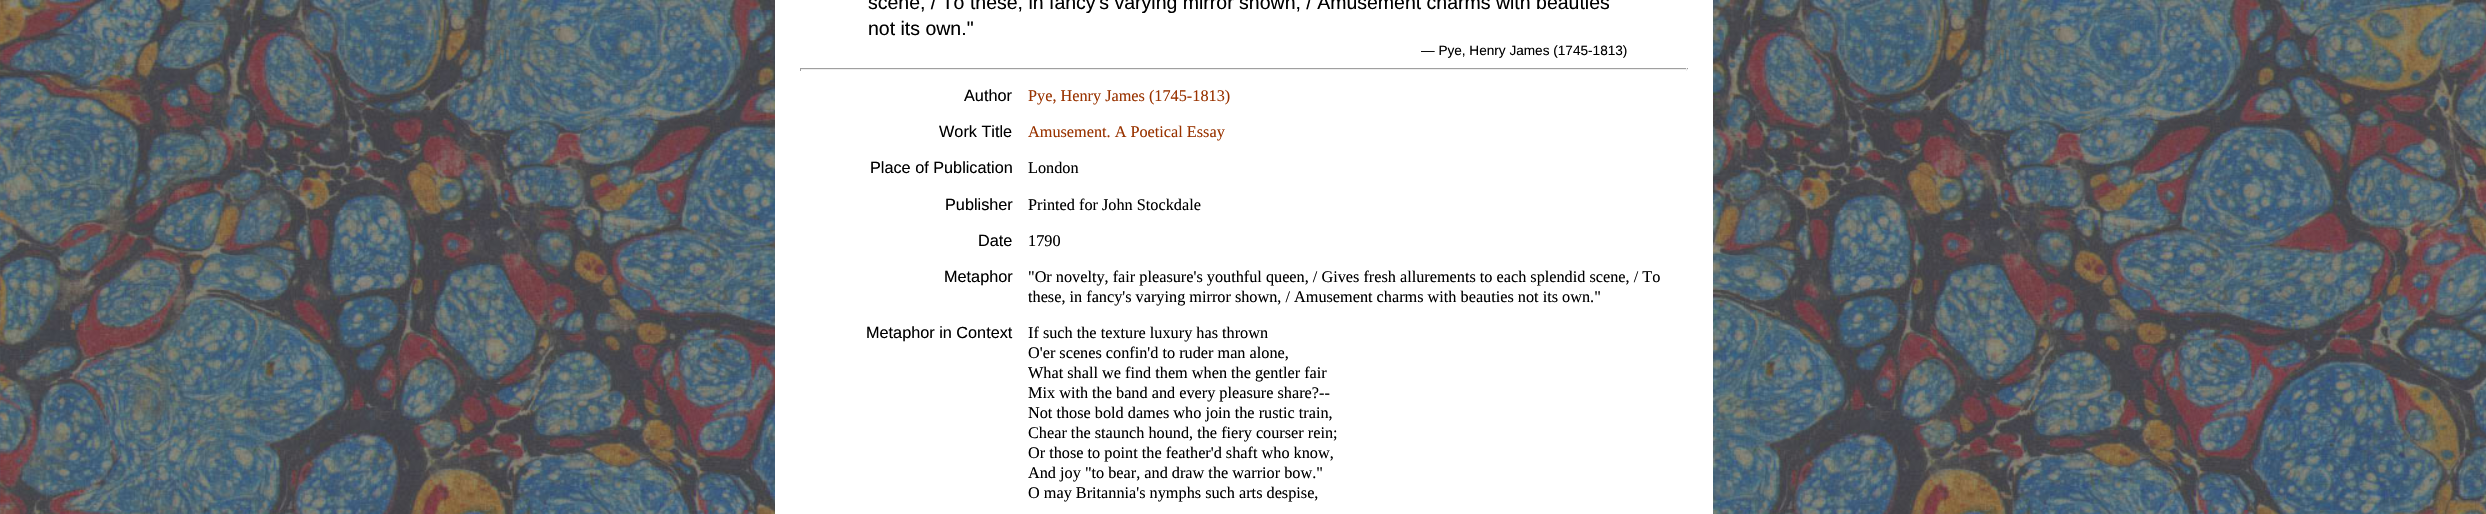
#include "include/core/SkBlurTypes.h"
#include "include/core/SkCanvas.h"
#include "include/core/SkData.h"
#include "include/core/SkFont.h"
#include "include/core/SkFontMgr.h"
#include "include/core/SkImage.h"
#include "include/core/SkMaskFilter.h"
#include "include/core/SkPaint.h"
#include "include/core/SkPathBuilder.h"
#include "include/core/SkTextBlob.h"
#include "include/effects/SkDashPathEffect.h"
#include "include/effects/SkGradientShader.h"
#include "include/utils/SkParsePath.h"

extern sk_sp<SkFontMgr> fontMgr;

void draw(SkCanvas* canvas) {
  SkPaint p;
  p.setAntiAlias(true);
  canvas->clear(SK_ColorWHITE);
  canvas->drawImageRect(SkImages::DeferredFromEncodedData(SkData::MakeFromFileName("images/1.png")), SkRect::MakeLTRB(0, 0, 2486, 514), SkSamplingOptions());
  p.setColor(SK_ColorWHITE);
  canvas->drawRect(SkRect::MakeLTRB(775, 0, 1713, 514), p);
  p.setColor(SkColorSetRGB(159, 159, 159));
  canvas->drawRect(SkRect::MakeLTRB(800, 68, 1688, 69), p);
  p.setColor(SkColorSetRGB(238, 238, 238));
  canvas->drawRect(SkRect::MakeLTRB(1686, 68, 1687, 71), p);
  canvas->drawRect(SkRect::MakeLTRB(800, 69, 1688, 70), p);
  p.setColor(SkColorSetRGB(159, 159, 159));
  canvas->drawRect(SkRect::MakeLTRB(800, 68, 801, 71), p);
  SkFont font1(fontMgr->matchFamilyStyle("Liberation Sans", SkFontStyle::Normal()), 19.5f);
  font1.setSubpixel(true);
  p.setColor(SK_ColorBLACK);
  canvas->drawString("scene, / To these, in fancy's varying mirror shown, / Amusement charms with beauties", 868, 9, font1, p);
  canvas->drawString("not its own.\"", 868, 35, font1, p);
  SkFont font2(fontMgr->matchFamilyStyle("Liberation Sans", SkFontStyle::Normal()), 13.6f);
  font2.setSubpixel(true);
  canvas->drawString("— Pye, Henry James (1745-1813)", 1421, 55, font2, p);
  SkFont font3(fontMgr->matchFamilyStyle("Liberation Sans", SkFontStyle::Normal()), 16.25f);
  font3.setSubpixel(true);
  canvas->drawString("Author", 964, 101, font3, p);
  SkFont font4(fontMgr->matchFamilyStyle("Liberation Serif", SkFontStyle::Normal()), 16.25f);
  font4.setSubpixel(true);
  p.setColor(SkColorSetRGB(153, 51, 0));
  canvas->drawString("Pye, Henry James (1745-1813)", 1028, 101, font4, p);
  p.setColor(SK_ColorBLACK);
  canvas->drawString("Work Title", 939, 137, font3, p);
  p.setColor(SkColorSetRGB(153, 51, 0));
  canvas->drawString("Amusement. A Poetical Essay", 1028, 137, font4, p);
  p.setColor(SK_ColorBLACK);
  canvas->drawString("Place of Publication", 870, 173, font3, p);
  canvas->drawString("London", 1028, 173, font4, p);
  canvas->drawString("Publisher", 945, 210, font3, p);
  canvas->drawString("Printed for John Stockdale", 1028, 210, font4, p);
  canvas->drawString("Date", 978, 246, font3, p);
  canvas->drawString("1790", 1028, 246, font4, p);
  canvas->drawString("Metaphor", 944, 282, font3, p);
  canvas->drawString("\"Or novelty, fair pleasure's youthful queen, / Gives fresh allurements to each splendid scene, / To", 1028, 282, font4, p);
  canvas->drawString("these, in fancy's varying mirror shown, / Amusement charms with beauties not its own.\"", 1028, 302, font4, p);
  canvas->drawString("Metaphor in Context", 866, 338, font3, p);
  canvas->drawString("If such the texture luxury has thrown", 1028, 338, font4, p);
  canvas->drawString("O'er scenes confin'd to ruder man alone,", 1028, 358, font4, p);
  canvas->drawString("What shall we find them when the gentler fair", 1028, 378, font4, p);
  canvas->drawString("Mix with the band and every pleasure share?--", 1028, 398, font4, p);
  canvas->drawString("Not those bold dames who join the rustic train,", 1028, 418, font4, p);
  canvas->drawString("Chear the staunch hound, the fiery courser rein;", 1028, 438, font4, p);
  canvas->drawString("Or those to point the feather'd shaft who know,", 1028, 458, font4, p);
  canvas->drawString("And joy \"to bear, and draw the warrior bow.\"", 1028, 478, font4, p);
  canvas->drawString("O may Britannia's nymphs such arts despise,", 1028, 498, font4, p);
}
